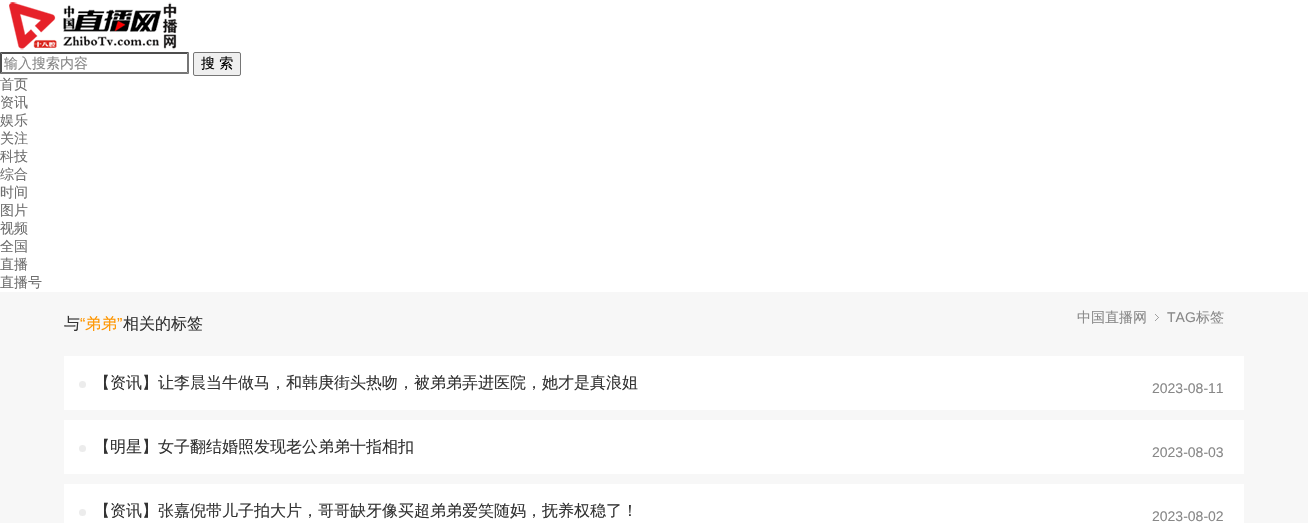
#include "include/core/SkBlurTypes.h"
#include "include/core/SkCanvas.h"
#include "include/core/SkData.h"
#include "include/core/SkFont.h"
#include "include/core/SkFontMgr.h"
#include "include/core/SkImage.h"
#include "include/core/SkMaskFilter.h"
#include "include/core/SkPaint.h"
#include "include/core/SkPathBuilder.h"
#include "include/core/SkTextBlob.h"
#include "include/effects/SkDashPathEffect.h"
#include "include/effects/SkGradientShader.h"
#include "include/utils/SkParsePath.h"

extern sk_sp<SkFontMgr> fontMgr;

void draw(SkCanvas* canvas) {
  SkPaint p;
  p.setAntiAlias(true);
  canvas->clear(SK_ColorWHITE);
  canvas->drawImageRect(SkImages::DeferredFromEncodedData(SkData::MakeFromFileName("images/1.png")), SkRect::MakeLTRB(9, 2, 179, 50), SkSamplingOptions());
  p.setColor(SkColorSetRGB(79, 79, 79));
  canvas->drawPath(SkPathBuilder().moveTo(0, 52).lineTo(189, 52).lineTo(187, 54).lineTo(2, 54).close().detach(), p);
  p.setColor(SkColorSetRGB(118, 118, 118));
  canvas->drawPath(SkPathBuilder().moveTo(189, 52).lineTo(189, 74).lineTo(187, 72).lineTo(187, 54).close().detach(), p);
  canvas->drawPath(SkPathBuilder().moveTo(189, 74).lineTo(0, 74).lineTo(2, 72).lineTo(187, 72).close().detach(), p);
  p.setColor(SkColorSetRGB(79, 79, 79));
  canvas->drawPath(SkPathBuilder().moveTo(0, 74).lineTo(0, 52).lineTo(2, 54).lineTo(2, 72).close().detach(), p);
  p.setColor(SkColorSetRGB(239, 239, 239));
  canvas->drawRoundRect(SkRect::MakeLTRB(193.5f, 52.5f, 240.5f, 75.5f), 1.5f, 1.5f, p);
  p.setStyle(SkPaint::kStroke_Style);
  p.setStrokeWidth(1);
  p.setColor(SkColorSetRGB(118, 118, 118));
  canvas->drawRoundRect(SkRect::MakeLTRB(193.5f, 52.5f, 240.5f, 75.5f), 1.5f, 1.5f, p);
  p.setStyle(SkPaint::kFill_Style);
  p.setColor(SkColorSetRGB(247, 247, 247));
  canvas->drawRect(SkRect::MakeLTRB(0, 292, 1308, 523), p);
  canvas->drawImageRect(SkImages::DeferredFromEncodedData(SkData::MakeFromFileName("images/2.png")), SkRect::MakeLTRB(1155, 314, 1159, 321), SkSamplingOptions());
  p.setColor(SK_ColorWHITE);
  canvas->drawRect(SkRect::MakeLTRB(64, 356, 1244, 410), p);
  p.setColor(SkColorSetRGB(236, 236, 236));
  canvas->drawCircle(82.5f, 384.5f, 3.5f, p);
  p.setColor(SK_ColorWHITE);
  canvas->drawRect(SkRect::MakeLTRB(64, 420, 1244, 474), p);
  p.setColor(SkColorSetRGB(236, 236, 236));
  canvas->drawCircle(82.5f, 448.5f, 3.5f, p);
  p.setColor(SK_ColorWHITE);
  canvas->drawRect(SkRect::MakeLTRB(64, 484, 1244, 523), p);
  p.setColor(SkColorSetRGB(236, 236, 236));
  canvas->drawCircle(82.5f, 512.5f, 3.5f, p);
  SkFont font1(fontMgr->matchFamilyStyle("WenQuanYi Zen Hei", SkFontStyle(500, SkFontStyle::kNormal_Width, SkFontStyle::kUpright_Slant)), 14);
  font1.setSubpixel(true);
  p.setColor(SkColorSetRGB(136, 136, 136));
  canvas->drawString("输入搜索内容", 4, 68, font1, p);
  p.setColor(SK_ColorBLACK);
  canvas->drawString("搜 索", 201, 68, font1, p);
  p.setColor(SkColorSetRGB(110, 110, 110));
  canvas->drawString("首页", 0, 89, font1, p);
  canvas->drawString("资讯", 0, 107, font1, p);
  canvas->drawString("娱乐", 0, 125, font1, p);
  canvas->drawString("关注", 0, 143, font1, p);
  canvas->drawString("科技", 0, 161, font1, p);
  canvas->drawString("综合", 0, 179, font1, p);
  canvas->drawString("时间", 0, 197, font1, p);
  canvas->drawString("图片", 0, 215, font1, p);
  canvas->drawString("视频", 0, 233, font1, p);
  canvas->drawString("全国", 0, 251, font1, p);
  canvas->drawString("直播", 0, 269, font1, p);
  canvas->drawString("直播号", 0, 287, font1, p);
  SkFont font2(fontMgr->matchFamilyStyle("WenQuanYi Zen Hei", SkFontStyle(500, SkFontStyle::kNormal_Width, SkFontStyle::kUpright_Slant)), 16);
  font2.setSubpixel(true);
  p.setColor(SkColorSetRGB(51, 51, 51));
  canvas->drawString("与", 64, 329, font2, p);
  SkFont font3(fontMgr->matchFamilyStyle("Liberation Sans", SkFontStyle::Normal()), 16);
  font3.setSubpixel(true);
  p.setColor(SkColorSetRGB(255, 150, 0));
  canvas->drawString("“", 80, 329, font3, p);
  canvas->drawString("弟弟", 85, 329, font2, p);
  canvas->drawString("”", 117, 329, font3, p);
  p.setColor(SkColorSetRGB(51, 51, 51));
  canvas->drawString("相关的标签", 123, 329, font2, p);
  p.setColor(SkColorSetRGB(136, 136, 136));
  canvas->drawString("中国直播网", 1077, 322, font1, p);
  SkFont font4(fontMgr->matchFamilyStyle("Liberation Sans", SkFontStyle::Normal()), 14);
  font4.setSubpixel(true);
  canvas->drawString("TAG", 1167, 322, font4, p);
  canvas->drawString("标签", 1196, 322, font1, p);
  p.setColor(SkColorSetRGB(51, 51, 51));
  canvas->drawString("【资讯】让李晨当牛做马，和韩庚街头热吻，被弟弟弄进医院，她才是真浪姐", 94, 388, font2, p);
  p.setColor(SkColorSetRGB(136, 136, 136));
  canvas->drawString("2023-08-11", 1152, 393, font4, p);
  p.setColor(SkColorSetRGB(51, 51, 51));
  canvas->drawString("【明星】女子翻结婚照发现老公弟弟十指相扣", 94, 452, font2, p);
  p.setColor(SkColorSetRGB(136, 136, 136));
  canvas->drawString("2023-08-03", 1152, 457, font4, p);
  p.setColor(SkColorSetRGB(51, 51, 51));
  canvas->drawString("【资讯】张嘉倪带儿子拍大片，哥哥缺牙像买超弟弟爱笑随妈，抚养权稳了！", 94, 516, font2, p);
  p.setColor(SkColorSetRGB(136, 136, 136));
  canvas->drawString("2023-08-02", 1152, 521, font4, p);
}
